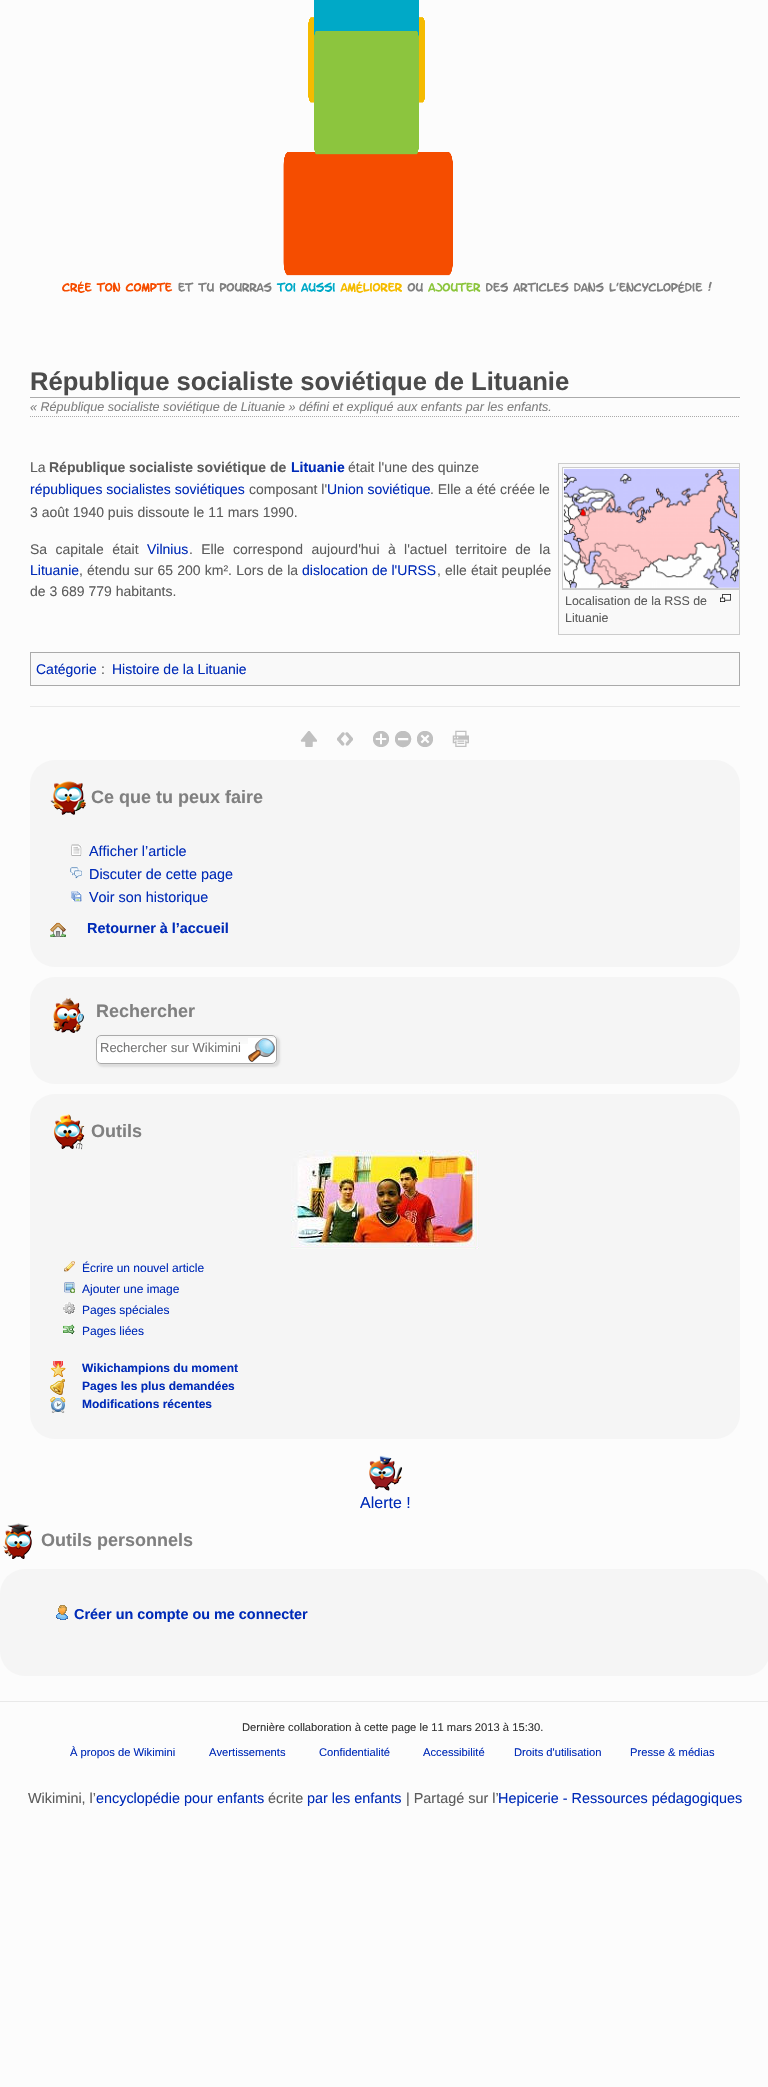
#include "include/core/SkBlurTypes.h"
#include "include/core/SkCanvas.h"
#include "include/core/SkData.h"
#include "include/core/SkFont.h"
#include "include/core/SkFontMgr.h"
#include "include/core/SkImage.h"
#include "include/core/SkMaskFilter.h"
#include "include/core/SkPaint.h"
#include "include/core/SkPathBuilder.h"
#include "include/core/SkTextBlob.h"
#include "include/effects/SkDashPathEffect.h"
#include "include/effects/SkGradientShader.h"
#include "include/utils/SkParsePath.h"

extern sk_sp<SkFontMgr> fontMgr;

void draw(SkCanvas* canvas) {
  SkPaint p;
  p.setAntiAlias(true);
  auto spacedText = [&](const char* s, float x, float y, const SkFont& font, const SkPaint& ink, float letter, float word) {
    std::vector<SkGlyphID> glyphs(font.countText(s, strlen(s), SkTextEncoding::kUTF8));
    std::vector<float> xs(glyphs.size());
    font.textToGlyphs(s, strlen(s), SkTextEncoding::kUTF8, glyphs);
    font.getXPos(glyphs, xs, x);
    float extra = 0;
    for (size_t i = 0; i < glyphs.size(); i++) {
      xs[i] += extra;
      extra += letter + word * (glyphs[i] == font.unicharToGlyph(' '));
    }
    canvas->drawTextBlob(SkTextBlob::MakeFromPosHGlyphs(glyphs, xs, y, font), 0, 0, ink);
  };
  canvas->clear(SkColorSetRGB(252, 252, 252));
  canvas->drawImageRect(SkImages::DeferredFromEncodedData(SkData::MakeFromFileName("images/1.png")), SkRect::MakeLTRB(283, 0, 453, 276), SkSamplingOptions());
  canvas->drawImageRect(SkImages::DeferredFromEncodedData(SkData::MakeFromFileName("images/2.png")), SkRect::MakeLTRB(62, 281, 712, 293), SkSamplingOptions());
  p.setColor(SkColorSetRGB(170, 170, 170));
  canvas->drawRect(SkRect::MakeLTRB(30, 397, 740, 398), p);
  p.setColor(SkColorSetRGB(233, 233, 233));
  canvas->drawRect(SkRect::MakeLTRB(30, 706, 740, 707), p);
  p.setStyle(SkPaint::kStroke_Style);
  p.setStrokeWidth(1);
  p.setColor(SkColorSetRGB(170, 170, 170));
  p.setPathEffect(SkDashPathEffect::Make({{1, 1}}, 0));
  canvas->drawPath(SkPathBuilder().moveTo(30, 416.5f).lineTo(740, 416.5f).detach(), p);
  p.setPathEffect(nullptr);
  p.setStyle(SkPaint::kFill_Style);
  p.setColor(SkColorSetRGB(249, 249, 249));
  canvas->drawRect(SkRect::MakeLTRB(558.5f, 463.5f, 739.5f, 634.5f), p);
  p.setStyle(SkPaint::kStroke_Style);
  p.setColor(SkColorSetRGB(204, 204, 204));
  canvas->drawRect(SkRect::MakeLTRB(558.5f, 463.5f, 739.5f, 634.5f), p);
  canvas->save();
  canvas->clipRect(SkRect::MakeLTRB(559, 464, 739, 634));
  canvas->drawRect(SkRect::MakeLTRB(562.5f, 467.5f, 741.5f, 589.5f), p);
  canvas->restore();
  canvas->drawImageRect(SkImages::DeferredFromEncodedData(SkData::MakeFromFileName("images/3.png")), SkRect::MakeLTRB(563, 468, 739, 589), SkSamplingOptions());
  canvas->drawImageRect(SkImages::DeferredFromEncodedData(SkData::MakeFromFileName("images/4.png")), SkRect::MakeLTRB(720, 594, 731, 602), SkSamplingOptions());
  p.setStyle(SkPaint::kFill_Style);
  p.setColor(SkColorSetRGB(249, 249, 249));
  canvas->drawRect(SkRect::MakeLTRB(30.5f, 652.5f, 739.5f, 685.5f), p);
  p.setStyle(SkPaint::kStroke_Style);
  p.setColor(SkColorSetRGB(170, 170, 170));
  canvas->drawRect(SkRect::MakeLTRB(30.5f, 652.5f, 739.5f, 685.5f), p);
  canvas->drawImageRect(SkImages::DeferredFromEncodedData(SkData::MakeFromFileName("images/5.png")), SkRect::MakeLTRB(300, 731, 317, 747), SkSamplingOptions());
  canvas->drawImageRect(SkImages::DeferredFromEncodedData(SkData::MakeFromFileName("images/6.png")), SkRect::MakeLTRB(337, 732, 353, 746), SkSamplingOptions());
  canvas->drawImageRect(SkImages::DeferredFromEncodedData(SkData::MakeFromFileName("images/7.png")), SkRect::MakeLTRB(373, 731, 389, 747), SkSamplingOptions());
  canvas->drawImageRect(SkImages::DeferredFromEncodedData(SkData::MakeFromFileName("images/8.png")), SkRect::MakeLTRB(395, 731, 412, 748), SkSamplingOptions());
  canvas->drawImageRect(SkImages::DeferredFromEncodedData(SkData::MakeFromFileName("images/9.png")), SkRect::MakeLTRB(417, 731, 433, 747), SkSamplingOptions());
  canvas->drawImageRect(SkImages::DeferredFromEncodedData(SkData::MakeFromFileName("images/10.png")), SkRect::MakeLTRB(452, 730, 469, 747), SkSamplingOptions());
  p.setStyle(SkPaint::kFill_Style);
  p.setColor(SkColorSetRGB(245, 245, 245));
  canvas->drawRoundRect(SkRect::MakeLTRB(30, 760, 740, 967), 25, 25, p);
  canvas->drawImageRect(SkImages::DeferredFromEncodedData(SkData::MakeFromFileName("images/11.png")), SkRect::MakeLTRB(50, 781, 86, 815), SkSamplingOptions());
  canvas->drawImageRect(SkImages::DeferredFromEncodedData(SkData::MakeFromFileName("images/12.png")), SkRect::MakeLTRB(71, 844, 82, 856), SkSamplingOptions());
  canvas->drawImageRect(SkImages::DeferredFromEncodedData(SkData::MakeFromFileName("images/13.png")), SkRect::MakeLTRB(70, 867, 82, 879), SkSamplingOptions());
  canvas->drawImageRect(SkImages::DeferredFromEncodedData(SkData::MakeFromFileName("images/14.png")), SkRect::MakeLTRB(71, 891, 82, 902), SkSamplingOptions());
  canvas->drawImageRect(SkImages::DeferredFromEncodedData(SkData::MakeFromFileName("images/15.png")), SkRect::MakeLTRB(50, 922, 66, 937), SkSamplingOptions());
  canvas->drawRoundRect(SkRect::MakeLTRB(30, 977, 740, 1084), 25, 25, p);
  canvas->drawImageRect(SkImages::DeferredFromEncodedData(SkData::MakeFromFileName("images/16.png")), SkRect::MakeLTRB(53, 997, 84, 1033), SkSamplingOptions());
  p.setColor(SkColorSetRGB(221, 221, 221));
  p.setMaskFilter(SkMaskFilter::MakeBlur(kNormal_SkBlurStyle, 1));
  canvas->drawRoundRect(SkRect::MakeLTRB(97, 1036, 280, 1067), 6, 6, p);
  p.setMaskFilter(nullptr);
  p.setColor(SK_ColorWHITE);
  canvas->drawRoundRect(SkRect::MakeLTRB(96, 1035, 277, 1064), 5, 5, p);
  canvas->drawImageRect(SkImages::DeferredFromEncodedData(SkData::MakeFromFileName("images/17.png")), SkRect::MakeLTRB(96, 1036, 277, 1044), SkSamplingOptions());
  p.setStyle(SkPaint::kStroke_Style);
  p.setColor(SkColorSetRGB(170, 170, 170));
  canvas->drawRoundRect(SkRect::MakeLTRB(96.5f, 1035.5f, 276.5f, 1063.5f), 4.5f, 4.5f, p);
  canvas->drawImageRect(SkImages::DeferredFromEncodedData(SkData::MakeFromFileName("images/18.png")), SkRect::MakeLTRB(248, 1038, 275, 1062), SkSamplingOptions());
  p.setStyle(SkPaint::kFill_Style);
  p.setColor(SkColorSetRGB(245, 245, 245));
  canvas->drawRoundRect(SkRect::MakeLTRB(30, 1094, 740, 1439), 25, 25, p);
  canvas->drawImageRect(SkImages::DeferredFromEncodedData(SkData::MakeFromFileName("images/19.png")), SkRect::MakeLTRB(53, 1114, 85, 1150), SkSamplingOptions());
  canvas->drawImageRect(SkImages::DeferredFromEncodedData(SkData::MakeFromFileName("images/20.png")), SkRect::MakeLTRB(291, 1150, 479, 1249), SkSamplingOptions());
  canvas->drawImageRect(SkImages::DeferredFromEncodedData(SkData::MakeFromFileName("images/21.png")), SkRect::MakeLTRB(64, 1261, 75, 1272), SkSamplingOptions());
  canvas->drawImageRect(SkImages::DeferredFromEncodedData(SkData::MakeFromFileName("images/22.png")), SkRect::MakeLTRB(64, 1282, 75, 1293), SkSamplingOptions());
  canvas->drawImageRect(SkImages::DeferredFromEncodedData(SkData::MakeFromFileName("images/23.png")), SkRect::MakeLTRB(63, 1302, 75, 1314), SkSamplingOptions());
  canvas->drawImageRect(SkImages::DeferredFromEncodedData(SkData::MakeFromFileName("images/24.png")), SkRect::MakeLTRB(63, 1324, 75, 1335), SkSamplingOptions());
  canvas->drawImageRect(SkImages::DeferredFromEncodedData(SkData::MakeFromFileName("images/25.png")), SkRect::MakeLTRB(51, 1361, 66, 1377), SkSamplingOptions());
  canvas->drawImageRect(SkImages::DeferredFromEncodedData(SkData::MakeFromFileName("images/26.png")), SkRect::MakeLTRB(50, 1379, 65, 1395), SkSamplingOptions());
  canvas->drawImageRect(SkImages::DeferredFromEncodedData(SkData::MakeFromFileName("images/27.png")), SkRect::MakeLTRB(50, 1397, 66, 1413), SkSamplingOptions());
  canvas->drawImageRect(SkImages::DeferredFromEncodedData(SkData::MakeFromFileName("images/28.png")), SkRect::MakeLTRB(369, 1455, 403, 1491), SkSamplingOptions());
  canvas->drawImageRect(SkImages::DeferredFromEncodedData(SkData::MakeFromFileName("images/29.png")), SkRect::MakeLTRB(3, 1523, 32, 1559), SkSamplingOptions());
  canvas->drawRoundRect(SkRect::MakeLTRB(0, 1569, 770, 1676), 25, 25, p);
  canvas->drawImageRect(SkImages::DeferredFromEncodedData(SkData::MakeFromFileName("images/30.png")), SkRect::MakeLTRB(56, 1605, 68, 1620), SkSamplingOptions());
  p.setColor(SkColorSetRGB(233, 233, 233));
  canvas->drawRect(SkRect::MakeLTRB(0, 1701, 768, 1702), p);
  SkFont font1(fontMgr->matchFamilyStyle("Liberation Sans", SkFontStyle::Bold()), 25.6f);
  font1.setSubpixel(true);
  p.setColor(SkColorSetRGB(75, 75, 75));
  canvas->drawString("République socialiste soviétique de Lituanie", 30, 390, font1, p);
  SkFont font2(fontMgr->matchFamilyStyle("Liberation Sans", SkFontStyle::Italic()), 12.6f);
  font2.setSubpixel(true);
  p.setColor(SkColorSetRGB(128, 128, 128));
  canvas->drawString("« République socialiste soviétique de Lituanie » défini et expliqué aux enfants par les enfants.", 30, 411, font2, p);
  SkFont font3(fontMgr->matchFamilyStyle("Liberation Sans", SkFontStyle::Normal()), 14);
  font3.setSubpixel(true);
  p.setColor(SkColorSetRGB(92, 92, 92));
  canvas->drawString("La", 30, 472, font3, p);
  SkFont font4(fontMgr->matchFamilyStyle("Liberation Sans", SkFontStyle::Bold()), 14);
  font4.setSubpixel(true);
  canvas->drawString("République socialiste soviétique de", 49, 472, font4, p);
  p.setColor(SkColorSetRGB(0, 43, 184));
  canvas->drawString("Lituanie", 291, 472, font4, p);
  p.setColor(SkColorSetRGB(92, 92, 92));
  canvas->drawString("était l'une des quinze", 348, 472, font3, p);
  p.setColor(SkColorSetRGB(0, 43, 184));
  canvas->drawString("républiques socialistes soviétiques", 30, 494, font3, p);
  p.setColor(SkColorSetRGB(92, 92, 92));
  canvas->drawString("composant l'", 249, 494, font3, p);
  p.setColor(SkColorSetRGB(0, 43, 184));
  canvas->drawString("Union soviétique", 327, 494, font3, p);
  p.setColor(SkColorSetRGB(92, 92, 92));
  canvas->drawString(". Elle a été créée le", 430, 494, font3, p);
  canvas->drawString("3 août 1940 puis dissoute le 11 mars 1990.", 30, 517, font3, p);
  spacedText("Sa capitale était", 30, 554, font3, p, 0, 4.5f);
  p.setColor(SkColorSetRGB(0, 43, 184));
  canvas->drawString("Vilnius", 147, 554, font3, p);
  p.setColor(SkColorSetRGB(92, 92, 92));
  spacedText(". Elle correspond aujourd'hui à l'actuel territoire de la", 189, 554, font3, p, 0, 4.5f);
  p.setColor(SkColorSetRGB(0, 43, 184));
  canvas->drawString("Lituanie", 30, 575, font3, p);
  p.setColor(SkColorSetRGB(92, 92, 92));
  spacedText(", étendu sur 65 200 km². Lors de la", 79, 575, font3, p, 0, 0.25f);
  p.setColor(SkColorSetRGB(0, 43, 184));
  canvas->drawString("dislocation de l'URSS", 302, 575, font3, p);
  p.setColor(SkColorSetRGB(92, 92, 92));
  spacedText(", elle était peuplée", 437, 575, font3, p, 0, 0.25f);
  canvas->drawString("de 3 689 779 habitants.", 30, 596, font3, p);
  SkFont font5(fontMgr->matchFamilyStyle("Liberation Sans", SkFontStyle::Normal()), 12.4f);
  font5.setSubpixel(true);
  canvas->drawString("Localisation de la RSS de", 565, 605, font5, p);
  canvas->drawString("Lituanie", 565, 622, font5, p);
  p.setColor(SkColorSetRGB(0, 43, 184));
  canvas->drawString("Catégorie", 36, 674, font3, p);
  p.setColor(SkColorSetRGB(92, 92, 92));
  canvas->drawString(":", 101, 674, font3, p);
  p.setColor(SkColorSetRGB(0, 43, 184));
  canvas->drawString("Histoire de la Lituanie", 112, 674, font3, p);
  SkFont font6(fontMgr->matchFamilyStyle("Liberation Sans", SkFontStyle::Bold()), 18);
  font6.setSubpixel(true);
  p.setColor(SkColorSetRGB(128, 128, 128));
  canvas->drawString("Ce que tu peux faire", 91, 803, font6, p);
  SkFont font7(fontMgr->matchFamilyStyle("Liberation Sans", SkFontStyle::Normal()), 14.4f);
  font7.setSubpixel(true);
  p.setColor(SkColorSetRGB(0, 43, 184));
  canvas->drawString("Afficher l’article", 89, 856, font7, p);
  canvas->drawString("Discuter de cette page", 89, 879, font7, p);
  canvas->drawString("Voir son historique", 89, 902, font7, p);
  SkFont font8(fontMgr->matchFamilyStyle("Liberation Sans", SkFontStyle::Bold()), 14.4f);
  font8.setSubpixel(true);
  canvas->drawString("Retourner à l’accueil", 87, 933, font8, p);
  p.setColor(SkColorSetRGB(128, 128, 128));
  canvas->drawString("Rechercher", 96, 1017, font6, p);
  SkFont font9(fontMgr->matchFamilyStyle("Liberation Sans", SkFontStyle::Normal()), 13);
  font9.setSubpixel(true);
  p.setColor(SkColorSetRGB(117, 117, 117));
  canvas->drawString("Rechercher sur Wikimini", 100, 1052, font9, p);
  p.setColor(SkColorSetRGB(128, 128, 128));
  canvas->drawString("Outils", 91, 1137, font6, p);
  SkFont font10(fontMgr->matchFamilyStyle("Liberation Sans", SkFontStyle::Normal()), 12);
  font10.setSubpixel(true);
  p.setColor(SkColorSetRGB(0, 43, 184));
  canvas->drawString("Écrire un nouvel article", 82, 1272, font10, p);
  canvas->drawString("Ajouter une image", 82, 1293, font10, p);
  canvas->drawString("Pages spéciales", 82, 1314, font10, p);
  canvas->drawString("Pages liées", 82, 1335, font10, p);
  SkFont font11(fontMgr->matchFamilyStyle("Liberation Sans", SkFontStyle::Bold()), 12);
  font11.setSubpixel(true);
  canvas->drawString("Wikichampions du moment", 82, 1372, font11, p);
  canvas->drawString("Pages les plus demandées", 82, 1390, font11, p);
  canvas->drawString("Modifications récentes", 82, 1408, font11, p);
  SkFont font12(fontMgr->matchFamilyStyle("Liberation Sans", SkFontStyle::Normal()), 16);
  font12.setSubpixel(true);
  canvas->drawString("Alerte !", 360, 1508, font12, p);
  p.setColor(SkColorSetRGB(128, 128, 128));
  canvas->drawString("Outils personnels", 41, 1546, font6, p);
  p.setColor(SkColorSetRGB(0, 43, 184));
  canvas->drawString("Créer un compte ou me connecter", 74, 1619, font8, p);
  SkFont font13(fontMgr->matchFamilyStyle("Liberation Sans", SkFontStyle::Normal()), 11.2f);
  font13.setSubpixel(true);
  p.setColor(SkColorSetRGB(51, 51, 51));
  canvas->drawString("Dernière collaboration à cette page le 11 mars 2013 à 15:30.", 242, 1731, font13, p);
  p.setColor(SkColorSetRGB(0, 43, 184));
  canvas->drawString("À propos de Wikimini", 70, 1756, font13, p);
  canvas->drawString("Avertissements", 209, 1756, font13, p);
  canvas->drawString("Confidentialité", 319, 1756, font13, p);
  canvas->drawString("Accessibilité", 423, 1756, font13, p);
  canvas->drawString("Droits d'utilisation", 514, 1756, font13, p);
  canvas->drawString("Presse & médias", 630, 1756, font13, p);
  p.setColor(SkColorSetRGB(92, 92, 92));
  canvas->drawString("Wikimini, l’", 28, 1803, font7, p);
  p.setColor(SkColorSetRGB(0, 43, 184));
  canvas->drawString("encyclopédie pour enfants", 96, 1803, font7, p);
  p.setColor(SkColorSetRGB(92, 92, 92));
  canvas->drawString("écrite", 268, 1803, font7, p);
  p.setColor(SkColorSetRGB(0, 43, 184));
  canvas->drawString("par les enfants", 307, 1803, font7, p);
  p.setColor(SkColorSetRGB(92, 92, 92));
  canvas->drawString("| Partagé sur l’", 406, 1803, font7, p);
  p.setColor(SkColorSetRGB(0, 43, 184));
  canvas->drawString("Hepicerie - Ressources pédagogiques", 498, 1803, font7, p);
}
